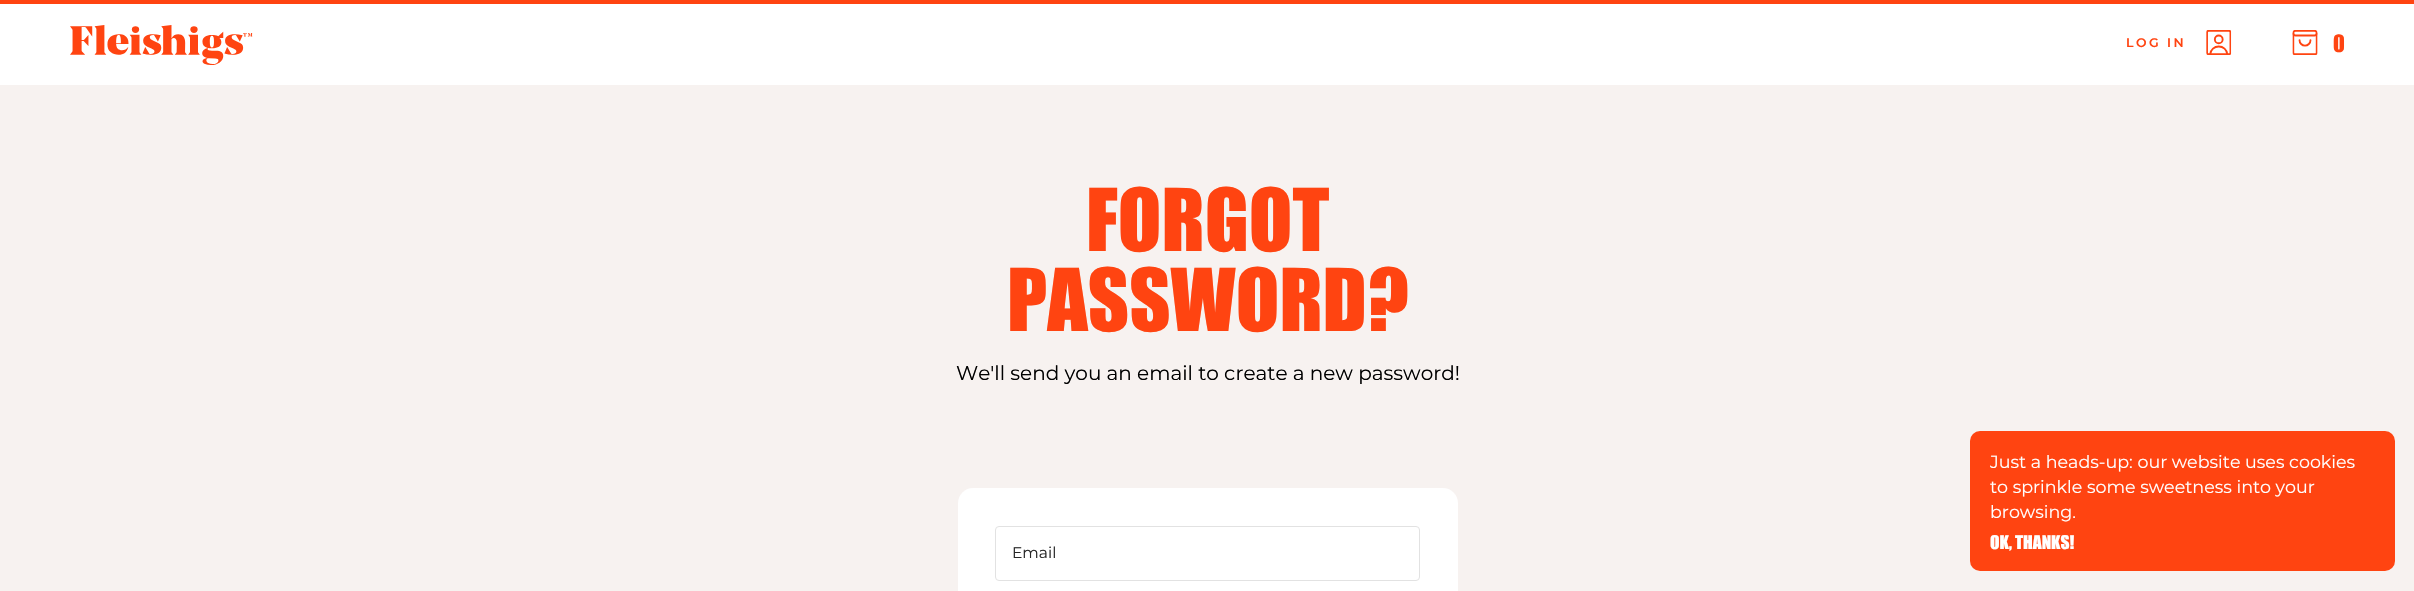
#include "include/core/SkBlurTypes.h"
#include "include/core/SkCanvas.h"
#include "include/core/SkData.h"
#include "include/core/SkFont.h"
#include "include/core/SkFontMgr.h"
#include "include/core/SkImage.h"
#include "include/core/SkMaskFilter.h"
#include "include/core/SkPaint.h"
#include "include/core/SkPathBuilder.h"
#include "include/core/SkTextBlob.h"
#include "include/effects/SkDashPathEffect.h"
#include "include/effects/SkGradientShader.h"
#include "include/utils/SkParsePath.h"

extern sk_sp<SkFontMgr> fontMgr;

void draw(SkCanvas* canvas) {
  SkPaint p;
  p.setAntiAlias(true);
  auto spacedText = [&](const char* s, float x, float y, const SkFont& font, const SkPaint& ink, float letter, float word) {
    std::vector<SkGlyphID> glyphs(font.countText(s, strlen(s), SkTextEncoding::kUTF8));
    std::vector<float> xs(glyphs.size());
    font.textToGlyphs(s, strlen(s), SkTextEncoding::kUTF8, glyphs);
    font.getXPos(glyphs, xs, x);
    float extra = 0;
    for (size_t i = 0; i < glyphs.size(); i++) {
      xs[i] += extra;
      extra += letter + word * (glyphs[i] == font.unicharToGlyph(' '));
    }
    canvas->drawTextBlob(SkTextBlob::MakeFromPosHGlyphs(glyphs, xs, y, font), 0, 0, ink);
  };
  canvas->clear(SK_ColorWHITE);
  p.setColor(SkColorSetRGB(255, 68, 17));
  canvas->drawRect(SkRect::MakeLTRB(0, 0, 2414, 4), p);
  canvas->drawImageRect(SkImages::DeferredFromEncodedData(SkData::MakeFromFileName("images/1.png")), SkRect::MakeLTRB(70, 25, 253, 65), SkSamplingOptions());
  canvas->drawImageRect(SkImages::DeferredFromEncodedData(SkData::MakeFromFileName("images/2.png")), SkRect::MakeLTRB(2206, 30, 2232, 55), SkSamplingOptions());
  canvas->drawImageRect(SkImages::DeferredFromEncodedData(SkData::MakeFromFileName("images/3.png")), SkRect::MakeLTRB(2292, 30, 2318, 55), SkSamplingOptions());
  p.setColor(SkColorSetRGB(247, 242, 240));
  canvas->drawRect(SkRect::MakeLTRB(0, 85, 2414, 591), p);
  p.setColor(SK_ColorWHITE);
  canvas->drawRoundRect(SkRect::MakeLTRB(958, 488, 1458, 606), 15, 15, p);
  p.setStyle(SkPaint::kStroke_Style);
  p.setStrokeWidth(1);
  p.setColor(SkColorSetRGB(226, 226, 226));
  canvas->drawRoundRect(SkRect::MakeLTRB(995.5f, 526.5f, 1419.5f, 580.5f), 3.5f, 3.5f, p);
  p.setStyle(SkPaint::kFill_Style);
  p.setColor(SkColorSetRGB(255, 68, 17));
  canvas->drawRoundRect(SkRect::MakeLTRB(1970, 431, 2395, 571), 10, 10, p);
  SkFont font1(fontMgr->matchFamilyStyle("Montserrat", SkFontStyle(600, SkFontStyle::kNormal_Width, SkFontStyle::kUpright_Slant)), 12.5f);
  font1.setSubpixel(true);
  spacedText("LOG IN", 2126, 47, font1, p, 2.5f, 0);
  SkFont font2(fontMgr->matchFamilyStyle("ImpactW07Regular", SkFontStyle::Normal()), 22);
  font2.setSubpixel(true);
  canvas->drawString("0", 2333, 52, font2, p);
  SkFont font3(fontMgr->matchFamilyStyle("ImpactW07Regular", SkFontStyle::Normal()), 80);
  font3.setSubpixel(true);
  canvas->drawString("FORGOT", 1086, 251, font3, p);
  canvas->drawString("PASSWORD?", 1007, 331, font3, p);
  SkFont font4(fontMgr->matchFamilyStyle("Montserrat", SkFontStyle::Normal()), 20);
  font4.setSubpixel(true);
  p.setColor(SK_ColorBLACK);
  canvas->drawString("We'll send you an email to create a new password!", 956, 380, font4, p);
  SkFont font5(fontMgr->matchFamilyStyle("Montserrat", SkFontStyle::Normal()), 15.5f);
  font5.setSubpixel(true);
  p.setColor(SkColorSetRGB(38, 38, 38));
  canvas->drawString("Email", 1012, 558, font5, p);
  SkFont font6(fontMgr->matchFamilyStyle("Montserrat", SkFontStyle::Normal()), 17.5f);
  font6.setSubpixel(true);
  p.setColor(SK_ColorWHITE);
  canvas->drawString("Just a heads-up: our website uses cookies", 1990, 468, font6, p);
  canvas->drawString("to sprinkle some sweetness into your", 1990, 493, font6, p);
  canvas->drawString("browsing.", 1990, 518, font6, p);
  SkFont font7(fontMgr->matchFamilyStyle("ImpactW07Regular", SkFontStyle::Normal()), 17.5f);
  font7.setSubpixel(true);
  canvas->drawString("OK, THANKS!", 1990, 549, font7, p);
}
